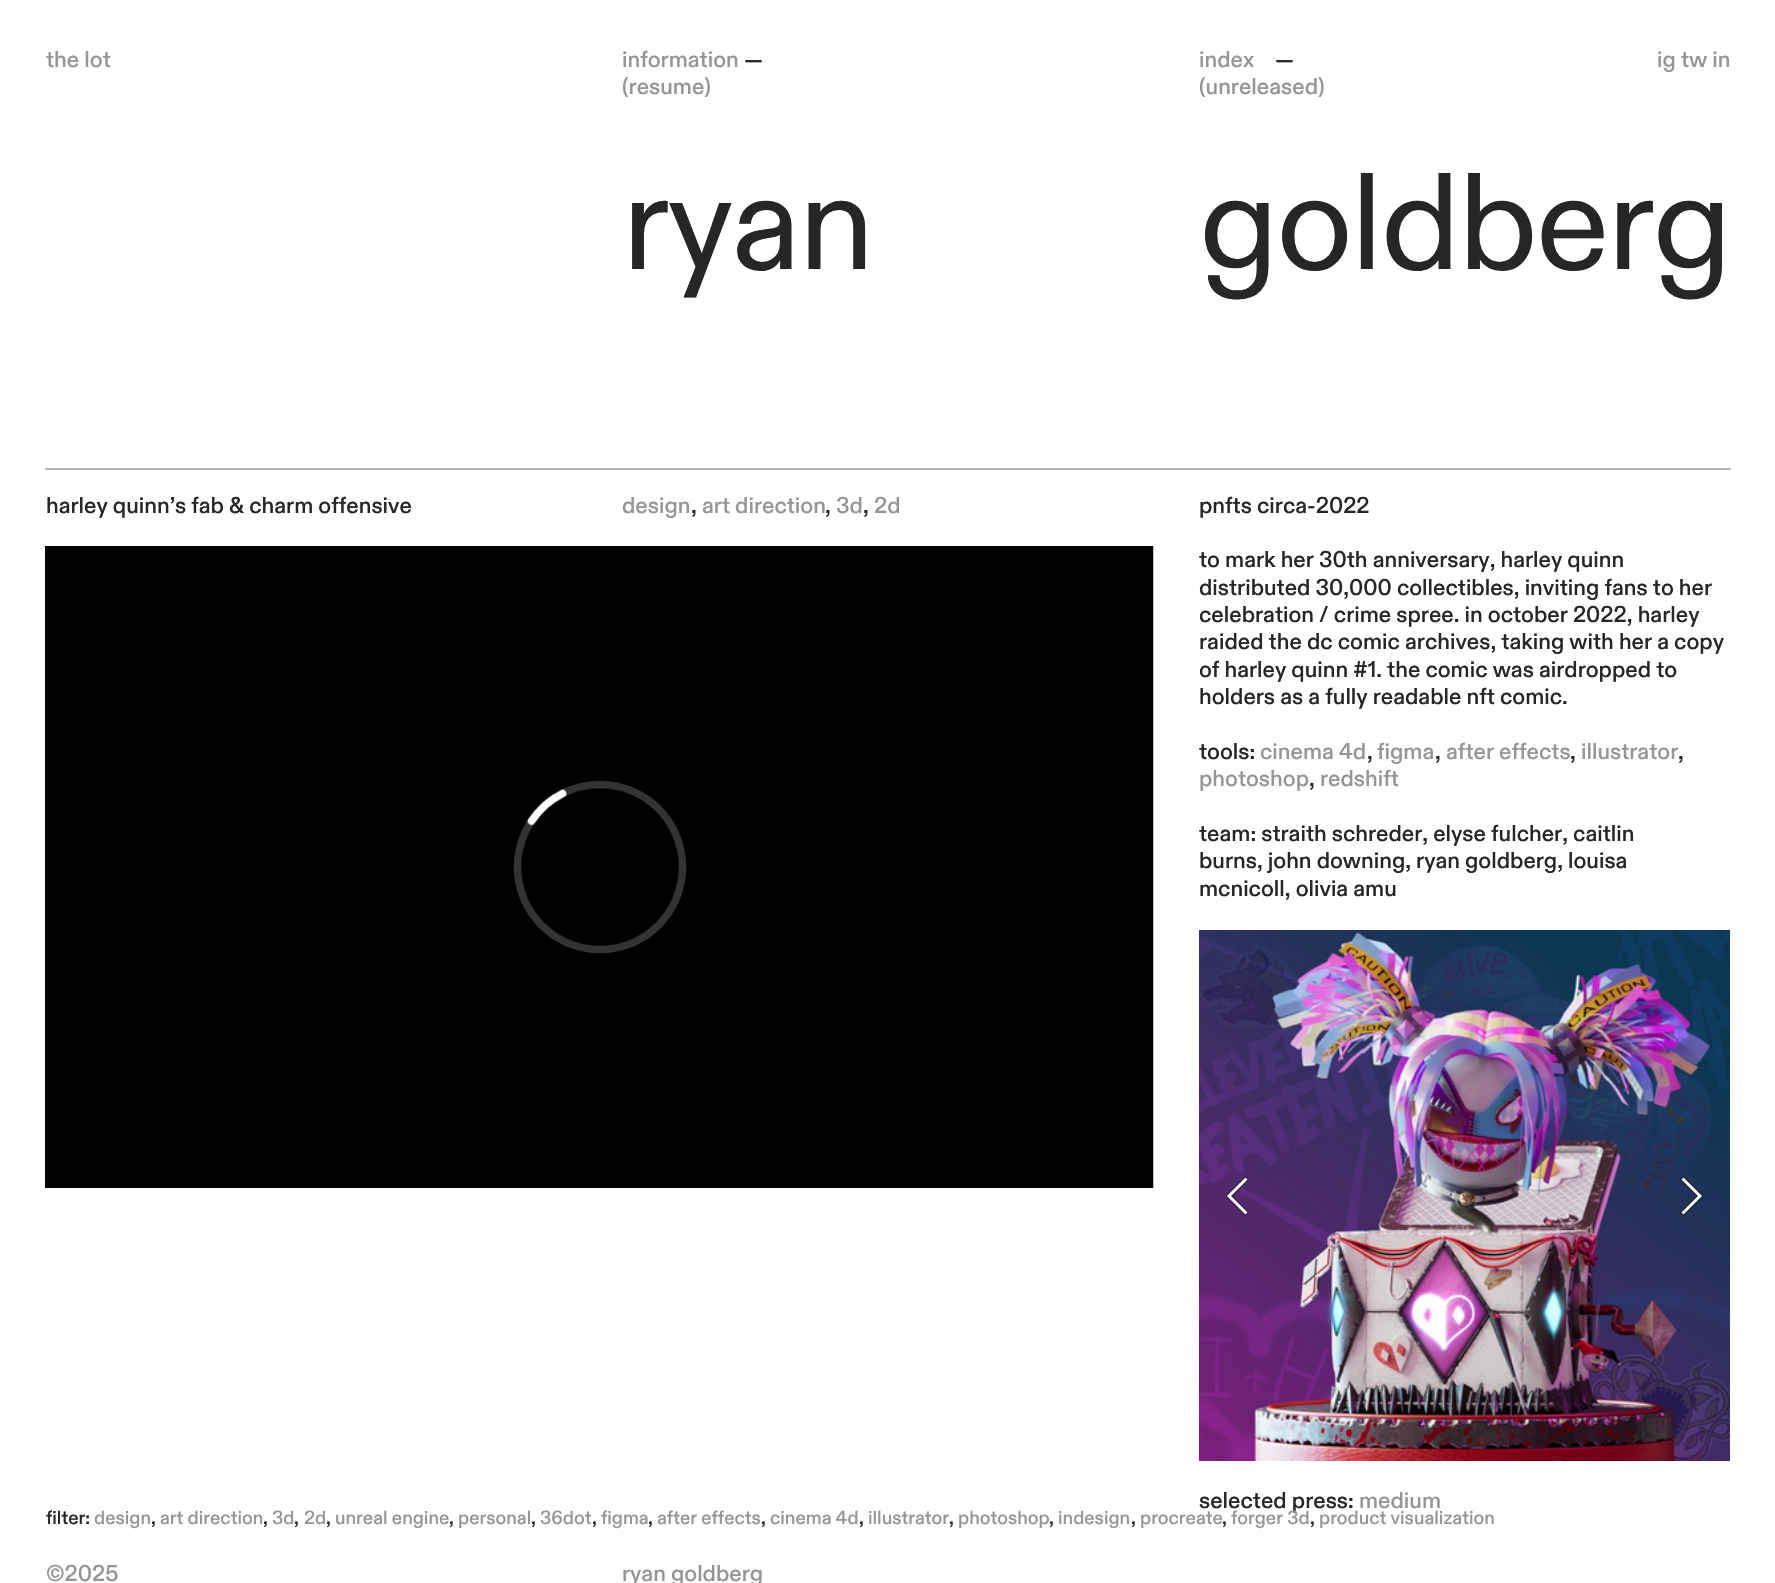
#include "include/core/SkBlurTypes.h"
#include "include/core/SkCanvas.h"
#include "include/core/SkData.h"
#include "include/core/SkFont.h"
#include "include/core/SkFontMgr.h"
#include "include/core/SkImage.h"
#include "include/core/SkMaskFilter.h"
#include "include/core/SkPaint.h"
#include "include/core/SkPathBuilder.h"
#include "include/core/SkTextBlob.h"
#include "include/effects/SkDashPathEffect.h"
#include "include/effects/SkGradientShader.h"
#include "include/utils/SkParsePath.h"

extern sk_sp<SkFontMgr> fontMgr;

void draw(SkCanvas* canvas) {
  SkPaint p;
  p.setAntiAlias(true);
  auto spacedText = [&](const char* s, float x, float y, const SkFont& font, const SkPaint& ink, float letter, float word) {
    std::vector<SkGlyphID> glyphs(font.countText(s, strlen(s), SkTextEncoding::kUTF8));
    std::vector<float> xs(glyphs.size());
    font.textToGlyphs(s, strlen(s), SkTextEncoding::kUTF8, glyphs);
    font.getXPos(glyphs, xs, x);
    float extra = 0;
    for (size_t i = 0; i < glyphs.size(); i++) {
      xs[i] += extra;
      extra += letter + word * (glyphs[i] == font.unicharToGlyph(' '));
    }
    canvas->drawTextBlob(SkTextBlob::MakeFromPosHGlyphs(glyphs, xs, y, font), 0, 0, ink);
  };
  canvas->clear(SK_ColorWHITE);
  p.setColor(SkColorSetRGB(179, 179, 179));
  canvas->drawRect(SkRect::MakeLTRB(45, 468, 1731, 470), p);
  canvas->drawImageRect(SkImages::DeferredFromEncodedData(SkData::MakeFromFileName("images/1.png")), SkRect::MakeLTRB(45, 546, 1154, 1188), SkSamplingOptions());
  canvas->drawImageRect(SkImages::DeferredFromEncodedData(SkData::MakeFromFileName("images/2.png")), SkRect::MakeLTRB(1199, 930, 1730, 1461), SkSamplingOptions());
  p.setStyle(SkPaint::kStroke_Style);
  p.setStrokeWidth(4.5f);
  p.setStrokeCap(SkPaint::kSquare_Cap);
  p.setColor(SkColorSetARGB(153, 0, 0, 0));
  canvas->drawPath(SkPathBuilder().moveTo(1245.5f, 1212.5f).lineTo(1229, 1196).lineTo(1245.5f, 1179.5f).detach(), p);
  p.setStrokeWidth(3);
  p.setColor(SK_ColorWHITE);
  canvas->drawPath(SkPathBuilder().moveTo(1245.5f, 1212.5f).lineTo(1229, 1196).lineTo(1245.5f, 1179.5f).detach(), p);
  p.setStrokeWidth(4.5f);
  p.setColor(SkColorSetARGB(153, 0, 0, 0));
  canvas->drawPath(SkPathBuilder().moveTo(1683.5f, 1212.5f).lineTo(1700, 1196).lineTo(1683.5f, 1179.5f).detach(), p);
  p.setStrokeWidth(3);
  p.setColor(SK_ColorWHITE);
  canvas->drawPath(SkPathBuilder().moveTo(1683.5f, 1212.5f).lineTo(1700, 1196).lineTo(1683.5f, 1179.5f).detach(), p);
  SkFont font1(fontMgr->matchFamilyStyle("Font", SkFontStyle(500, SkFontStyle::kNormal_Width, SkFontStyle::kUpright_Slant)), 22.8f);
  font1.setSubpixel(true);
  p.setStyle(SkPaint::kFill_Style);
  p.setColor(SkColorSetRGB(149, 149, 149));
  canvas->drawString("the lot", 46, 67, font1, p);
  canvas->drawString("information", 622, 67, font1, p);
  p.setColor(SkColorSetRGB(38, 38, 38));
  canvas->drawString("—", 744, 67, font1, p);
  p.setColor(SkColorSetRGB(149, 149, 149));
  canvas->drawString("(resume)", 622, 94, font1, p);
  canvas->drawString("index", 1199, 67, font1, p);
  p.setColor(SkColorSetRGB(38, 38, 38));
  canvas->drawString("—", 1275, 67, font1, p);
  p.setColor(SkColorSetRGB(149, 149, 149));
  canvas->drawString("(unreleased)", 1199, 94, font1, p);
  canvas->drawString("ig tw in", 1657, 67, font1, p);
  SkFont font2(fontMgr->matchFamilyStyle("Font", SkFontStyle::Normal()), 137);
  font2.setSubpixel(true);
  p.setColor(SkColorSetRGB(38, 38, 38));
  spacedText("ryan", 622, 269, font2, p, -2.25f, 0);
  spacedText("goldberg", 1199, 269, font2, p, -2.25f, 0);
  canvas->drawString("harley quinn’s fab & charm offensive", 46, 513, font1, p);
  p.setColor(SkColorSetRGB(149, 149, 149));
  canvas->drawString("design", 622, 513, font1, p);
  p.setColor(SkColorSetRGB(38, 38, 38));
  canvas->drawString(",", 691, 513, font1, p);
  p.setColor(SkColorSetRGB(149, 149, 149));
  canvas->drawString("art direction", 702, 513, font1, p);
  p.setColor(SkColorSetRGB(38, 38, 38));
  canvas->drawString(",", 825, 513, font1, p);
  p.setColor(SkColorSetRGB(149, 149, 149));
  canvas->drawString("3d", 836, 513, font1, p);
  p.setColor(SkColorSetRGB(38, 38, 38));
  canvas->drawString(",", 863, 513, font1, p);
  p.setColor(SkColorSetRGB(149, 149, 149));
  canvas->drawString("2d", 874, 513, font1, p);
  p.setColor(SkColorSetRGB(38, 38, 38));
  canvas->drawString("pnfts circa-2022", 1199, 513, font1, p);
  canvas->drawString("to mark her 30th anniversary, harley quinn", 1199, 567, font1, p);
  canvas->drawString("distributed 30,000 collectibles, inviting fans to her", 1199, 595, font1, p);
  canvas->drawString("celebration / crime spree. in october 2022, harley", 1199, 622, font1, p);
  canvas->drawString("raided the dc comic archives, taking with her a copy", 1199, 649, font1, p);
  canvas->drawString("of harley quinn #1. the comic was airdropped to", 1199, 677, font1, p);
  canvas->drawString("holders as a fully readable nft comic.", 1199, 704, font1, p);
  canvas->drawString("tools:", 1199, 759, font1, p);
  p.setColor(SkColorSetRGB(149, 149, 149));
  canvas->drawString("cinema 4d", 1260, 759, font1, p);
  p.setColor(SkColorSetRGB(38, 38, 38));
  canvas->drawString(",", 1367, 759, font1, p);
  p.setColor(SkColorSetRGB(149, 149, 149));
  canvas->drawString("figma", 1377, 759, font1, p);
  p.setColor(SkColorSetRGB(38, 38, 38));
  canvas->drawString(",", 1435, 759, font1, p);
  p.setColor(SkColorSetRGB(149, 149, 149));
  canvas->drawString("after effects", 1446, 759, font1, p);
  p.setColor(SkColorSetRGB(38, 38, 38));
  canvas->drawString(",", 1570, 759, font1, p);
  p.setColor(SkColorSetRGB(149, 149, 149));
  canvas->drawString("illustrator", 1581, 759, font1, p);
  p.setColor(SkColorSetRGB(38, 38, 38));
  canvas->drawString(",", 1678, 759, font1, p);
  p.setColor(SkColorSetRGB(149, 149, 149));
  canvas->drawString("photoshop", 1199, 786, font1, p);
  p.setColor(SkColorSetRGB(38, 38, 38));
  canvas->drawString(",", 1309, 786, font1, p);
  p.setColor(SkColorSetRGB(149, 149, 149));
  canvas->drawString("redshift", 1320, 786, font1, p);
  p.setColor(SkColorSetRGB(38, 38, 38));
  canvas->drawString("team: straith schreder, elyse fulcher, caitlin", 1199, 841, font1, p);
  canvas->drawString("burns, john downing, ryan goldberg, louisa", 1199, 868, font1, p);
  canvas->drawString("mcnicoll, olivia amu", 1199, 896, font1, p);
  canvas->drawString("selected press:", 1199, 1508, font1, p);
  p.setColor(SkColorSetRGB(149, 149, 149));
  canvas->drawString("medium", 1359, 1508, font1, p);
  SkFont font3(fontMgr->matchFamilyStyle("Font", SkFontStyle(500, SkFontStyle::kNormal_Width, SkFontStyle::kUpright_Slant)), 19);
  font3.setSubpixel(true);
  p.setColor(SkColorSetRGB(38, 38, 38));
  canvas->drawString("filter:", 46, 1524, font3, p);
  p.setColor(SkColorSetRGB(149, 149, 149));
  canvas->drawString("design", 94, 1524, font3, p);
  p.setColor(SkColorSetRGB(38, 38, 38));
  canvas->drawString(",", 151, 1524, font3, p);
  p.setColor(SkColorSetRGB(149, 149, 149));
  canvas->drawString("art direction", 160, 1524, font3, p);
  p.setColor(SkColorSetRGB(38, 38, 38));
  canvas->drawString(",", 263, 1524, font3, p);
  p.setColor(SkColorSetRGB(149, 149, 149));
  canvas->drawString("3d", 272, 1524, font3, p);
  p.setColor(SkColorSetRGB(38, 38, 38));
  canvas->drawString(",", 294, 1524, font3, p);
  p.setColor(SkColorSetRGB(149, 149, 149));
  canvas->drawString("2d", 304, 1524, font3, p);
  p.setColor(SkColorSetRGB(38, 38, 38));
  canvas->drawString(",", 326, 1524, font3, p);
  p.setColor(SkColorSetRGB(149, 149, 149));
  canvas->drawString("unreal engine", 335, 1524, font3, p);
  p.setColor(SkColorSetRGB(38, 38, 38));
  canvas->drawString(",", 449, 1524, font3, p);
  p.setColor(SkColorSetRGB(149, 149, 149));
  canvas->drawString("personal", 458, 1524, font3, p);
  p.setColor(SkColorSetRGB(38, 38, 38));
  canvas->drawString(",", 531, 1524, font3, p);
  p.setColor(SkColorSetRGB(149, 149, 149));
  canvas->drawString("36dot", 540, 1524, font3, p);
  p.setColor(SkColorSetRGB(38, 38, 38));
  canvas->drawString(",", 592, 1524, font3, p);
  p.setColor(SkColorSetRGB(149, 149, 149));
  canvas->drawString("figma", 601, 1524, font3, p);
  p.setColor(SkColorSetRGB(38, 38, 38));
  canvas->drawString(",", 648, 1524, font3, p);
  p.setColor(SkColorSetRGB(149, 149, 149));
  canvas->drawString("after effects", 657, 1524, font3, p);
  p.setColor(SkColorSetRGB(38, 38, 38));
  canvas->drawString(",", 761, 1524, font3, p);
  p.setColor(SkColorSetRGB(149, 149, 149));
  canvas->drawString("cinema 4d", 770, 1524, font3, p);
  p.setColor(SkColorSetRGB(38, 38, 38));
  canvas->drawString(",", 859, 1524, font3, p);
  p.setColor(SkColorSetRGB(149, 149, 149));
  canvas->drawString("illustrator", 868, 1524, font3, p);
  p.setColor(SkColorSetRGB(38, 38, 38));
  canvas->drawString(",", 949, 1524, font3, p);
  p.setColor(SkColorSetRGB(149, 149, 149));
  canvas->drawString("photoshop", 958, 1524, font3, p);
  p.setColor(SkColorSetRGB(38, 38, 38));
  canvas->drawString(",", 1049, 1524, font3, p);
  p.setColor(SkColorSetRGB(149, 149, 149));
  canvas->drawString("indesign", 1058, 1524, font3, p);
  p.setColor(SkColorSetRGB(38, 38, 38));
  canvas->drawString(",", 1131, 1524, font3, p);
  p.setColor(SkColorSetRGB(149, 149, 149));
  canvas->drawString("procreate", 1140, 1524, font3, p);
  p.setColor(SkColorSetRGB(38, 38, 38));
  canvas->drawString(",", 1222, 1524, font3, p);
  p.setColor(SkColorSetRGB(149, 149, 149));
  canvas->drawString("forger 3d", 1231, 1524, font3, p);
  p.setColor(SkColorSetRGB(38, 38, 38));
  canvas->drawString(",", 1310, 1524, font3, p);
  p.setColor(SkColorSetRGB(149, 149, 149));
  canvas->drawString("product visualization", 1319, 1524, font3, p);
  canvas->drawString("©2025", 46, 1581, font1, p);
  canvas->drawString("ryan goldberg", 622, 1581, font1, p);
}
